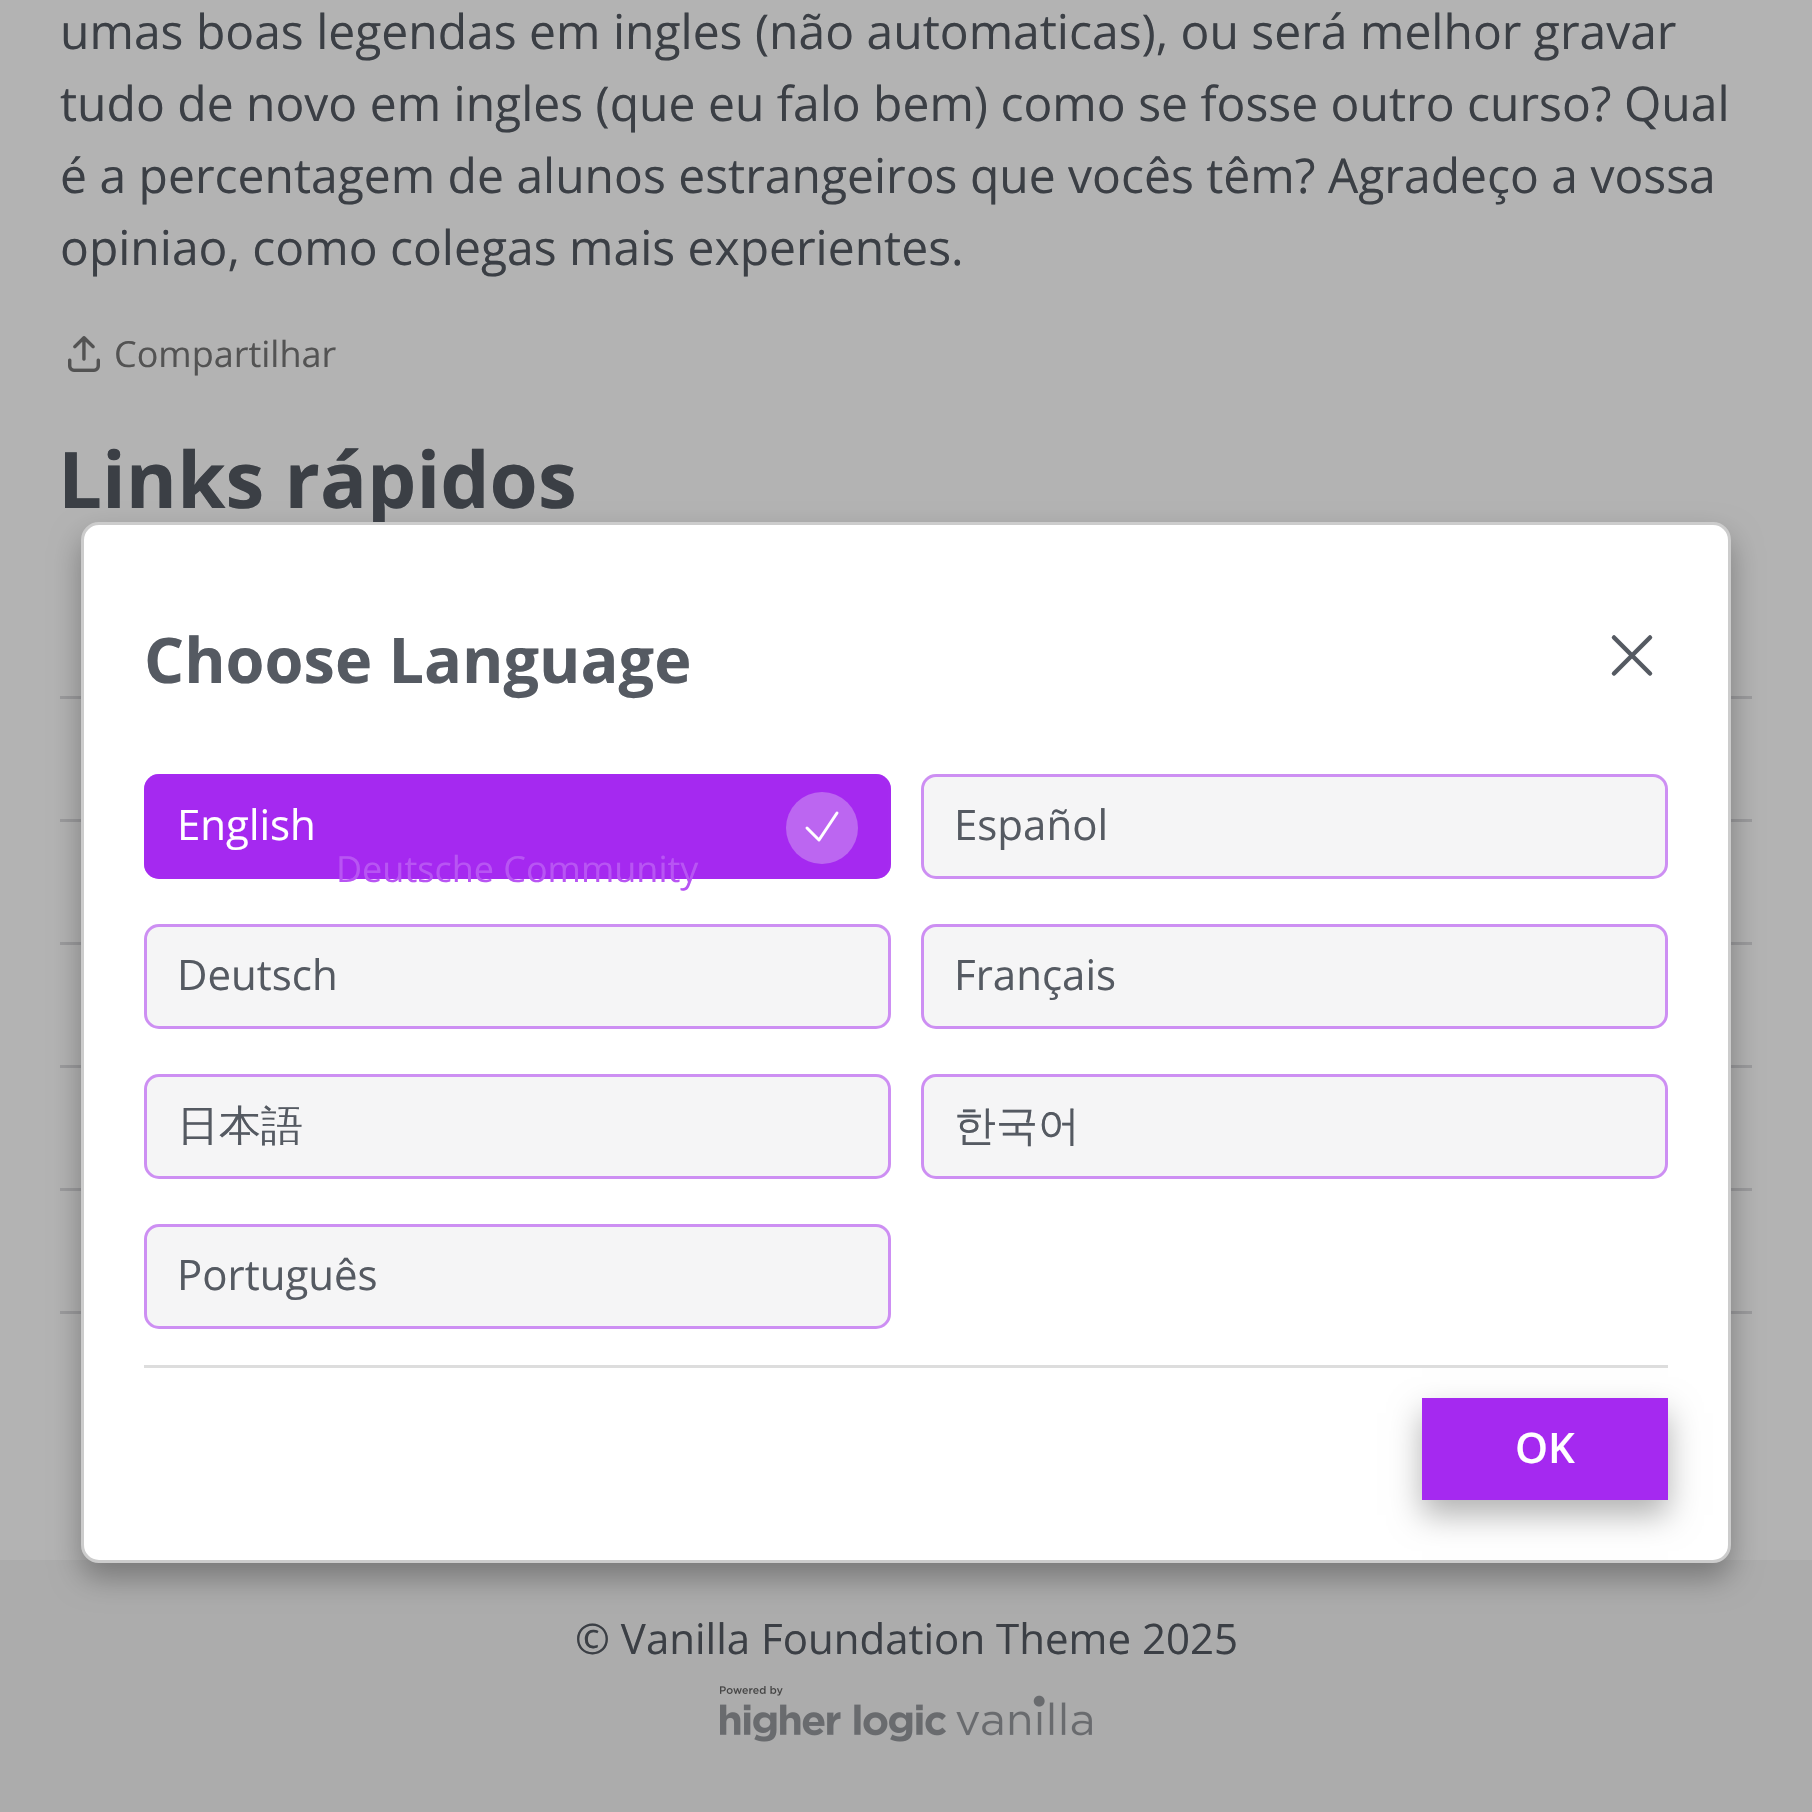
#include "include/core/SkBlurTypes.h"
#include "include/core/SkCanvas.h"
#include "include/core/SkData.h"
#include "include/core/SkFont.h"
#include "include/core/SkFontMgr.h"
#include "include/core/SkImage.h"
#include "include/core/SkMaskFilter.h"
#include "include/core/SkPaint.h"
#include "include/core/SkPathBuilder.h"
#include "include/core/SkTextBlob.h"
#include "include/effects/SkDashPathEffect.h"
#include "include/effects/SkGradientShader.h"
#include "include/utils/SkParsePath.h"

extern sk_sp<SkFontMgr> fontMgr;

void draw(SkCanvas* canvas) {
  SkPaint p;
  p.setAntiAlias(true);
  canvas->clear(SkColorSetRGB(179, 179, 179));
  canvas->drawImageRect(SkImages::DeferredFromEncodedData(SkData::MakeFromFileName("images/1.png")), SkRect::MakeLTRB(68, 336, 100, 372), SkSamplingOptions());
  p.setColor(SkColorSetRGB(155, 155, 157));
  canvas->drawRect(SkRect::MakeLTRB(60, 696, 1752, 699), p);
  canvas->drawRect(SkRect::MakeLTRB(60, 819, 1752, 822), p);
  canvas->drawRect(SkRect::MakeLTRB(60, 942, 1752, 945), p);
  canvas->drawRect(SkRect::MakeLTRB(60, 1065, 1752, 1068), p);
  canvas->drawRect(SkRect::MakeLTRB(60, 1188, 1752, 1191), p);
  canvas->drawRect(SkRect::MakeLTRB(60, 1311, 1752, 1314), p);
  p.setColor(SkColorSetRGB(172, 172, 172));
  canvas->drawRect(SkRect::MakeLTRB(0, 1560, 1812, 1812), p);
  p.setColor(SkColorSetARGB(77, 0, 0, 0));
  p.setMaskFilter(SkMaskFilter::MakeBlur(kNormal_SkBlurStyle, 15));
  canvas->drawRoundRect(SkRect::MakeLTRB(81, 537, 1731, 1578), 18, 18, p);
  p.setMaskFilter(nullptr);
  canvas->drawImageRect(SkImages::DeferredFromEncodedData(SkData::MakeFromFileName("images/2.png")), SkRect::MakeLTRB(720, 1686, 1092, 1742), SkSamplingOptions());
  SkFont font1(fontMgr->matchFamilyStyle("Open Sans", SkFontStyle::Normal()), 48);
  font1.setSubpixel(true);
  p.setColor(SkColorSetRGB(59, 63, 69));
  canvas->drawString("umas boas legendas em ingles (não automaticas), ou será melhor gravar", 60, 49, font1, p);
  canvas->drawString("tudo de novo em ingles (que eu falo bem) como se fosse outro curso? Qual", 60, 121, font1, p);
  canvas->drawString("é a percentagem de alunos estrangeiros que vocês têm? Agradeço a vossa", 60, 193, font1, p);
  canvas->drawString("opiniao, como colegas mais experientes.", 60, 265, font1, p);
  SkFont font2(fontMgr->matchFamilyStyle("Open Sans", SkFontStyle::Normal()), 36);
  font2.setSubpixel(true);
  p.setColor(SkColorSetRGB(83, 83, 83));
  canvas->drawString("Compartilhar", 114, 367, font2, p);
  SkFont font3(fontMgr->matchFamilyStyle("Open Sans", SkFontStyle::Bold()), 78);
  font3.setSubpixel(true);
  p.setColor(SkColorSetRGB(59, 63, 69));
  canvas->drawString("Links rápidos", 58, 508, font3, p);
  p.setColor(SK_ColorWHITE);
  canvas->drawRoundRect(SkRect::MakeLTRB(82.5f, 523.5f, 1729.5f, 1561.5f), 16.5f, 16.5f, p);
  p.setStyle(SkPaint::kStroke_Style);
  p.setStrokeWidth(3);
  p.setColor(SkColorSetRGB(204, 204, 204));
  canvas->drawRoundRect(SkRect::MakeLTRB(82.5f, 523.5f, 1729.5f, 1561.5f), 16.5f, 16.5f, p);
  SkFont font4(fontMgr->matchFamilyStyle("Open Sans", SkFontStyle::Bold()), 63);
  font4.setSubpixel(true);
  p.setStyle(SkPaint::kFill_Style);
  p.setColor(SkColorSetRGB(85, 90, 98));
  canvas->drawString("Choose Language", 144, 683, font4, p);
  p.setStyle(SkPaint::kStroke_Style);
  p.setStrokeWidth(4.5f);
  p.setStrokeCap(SkPaint::kRound_Cap);
  p.setStrokeJoin(SkPaint::kRound_Join);
  canvas->drawPath(SkPathBuilder().moveTo(1614, 673.5f).lineTo(1650, 637.5f).moveTo(1614, 637.5f).lineTo(1650, 673.5f).detach(), p);
  p.setStyle(SkPaint::kFill_Style);
  p.setColor(SkColorSetRGB(165, 41, 240));
  canvas->drawRoundRect(SkRect::MakeLTRB(144, 774, 891, 879), 15, 15, p);
  p.setStyle(SkPaint::kStroke_Style);
  p.setStrokeWidth(3);
  p.setStrokeCap(SkPaint::kButt_Cap);
  p.setStrokeJoin(SkPaint::kMiter_Join);
  p.setColor(SkColorSetARGB(128, 165, 41, 240));
  canvas->drawRoundRect(SkRect::MakeLTRB(145.5f, 775.5f, 889.5f, 877.5f), 13.5f, 13.5f, p);
  SkFont font5(fontMgr->matchFamilyStyle("Open Sans", SkFontStyle::Normal()), 42);
  font5.setSubpixel(true);
  p.setStyle(SkPaint::kFill_Style);
  p.setColor(SK_ColorWHITE);
  canvas->drawString("English", 177, 840, font5, p);
  p.setColor(SkColorSetRGB(188, 102, 241));
  canvas->drawCircle(822, 828, 36, p);
  p.setStyle(SkPaint::kStroke_Style);
  p.setStrokeCap(SkPaint::kRound_Cap);
  p.setStrokeJoin(SkPaint::kRound_Join);
  p.setColor(SK_ColorWHITE);
  canvas->drawPath(SkPathBuilder().moveTo(807, 828).lineTo(819, 840).lineTo(837, 813).detach(), p);
  p.setStyle(SkPaint::kFill_Style);
  p.setColor(SkColorSetRGB(245, 245, 246));
  canvas->drawRoundRect(SkRect::MakeLTRB(921, 774, 1668, 879), 15, 15, p);
  p.setStyle(SkPaint::kStroke_Style);
  p.setStrokeCap(SkPaint::kButt_Cap);
  p.setStrokeJoin(SkPaint::kMiter_Join);
  p.setColor(SkColorSetARGB(128, 165, 41, 240));
  canvas->drawRoundRect(SkRect::MakeLTRB(922.5f, 775.5f, 1666.5f, 877.5f), 13.5f, 13.5f, p);
  p.setStyle(SkPaint::kFill_Style);
  p.setColor(SkColorSetRGB(85, 90, 98));
  canvas->drawString("Español", 954, 840, font5, p);
  p.setColor(SkColorSetRGB(245, 245, 246));
  canvas->drawRoundRect(SkRect::MakeLTRB(144, 924, 891, 1029), 15, 15, p);
  p.setStyle(SkPaint::kStroke_Style);
  p.setColor(SkColorSetARGB(128, 165, 41, 240));
  canvas->drawRoundRect(SkRect::MakeLTRB(145.5f, 925.5f, 889.5f, 1027.5f), 13.5f, 13.5f, p);
  p.setStyle(SkPaint::kFill_Style);
  p.setColor(SkColorSetRGB(184, 85, 243));
  canvas->drawString("Deutsche Community", 336, 882, font2, p);
  p.setColor(SkColorSetRGB(85, 90, 98));
  canvas->drawString("Deutsch", 177, 990, font5, p);
  p.setColor(SkColorSetRGB(245, 245, 246));
  canvas->drawRoundRect(SkRect::MakeLTRB(921, 924, 1668, 1029), 15, 15, p);
  p.setStyle(SkPaint::kStroke_Style);
  p.setColor(SkColorSetARGB(128, 165, 41, 240));
  canvas->drawRoundRect(SkRect::MakeLTRB(922.5f, 925.5f, 1666.5f, 1027.5f), 13.5f, 13.5f, p);
  p.setStyle(SkPaint::kFill_Style);
  p.setColor(SkColorSetRGB(85, 90, 98));
  canvas->drawString("Français", 954, 990, font5, p);
  p.setColor(SkColorSetRGB(245, 245, 246));
  canvas->drawRoundRect(SkRect::MakeLTRB(144, 1074, 891, 1179), 15, 15, p);
  p.setStyle(SkPaint::kStroke_Style);
  p.setColor(SkColorSetARGB(128, 165, 41, 240));
  canvas->drawRoundRect(SkRect::MakeLTRB(145.5f, 1075.5f, 889.5f, 1177.5f), 13.5f, 13.5f, p);
  SkFont font6(fontMgr->matchFamilyStyle("WenQuanYi Zen Hei", SkFontStyle(500, SkFontStyle::kNormal_Width, SkFontStyle::kUpright_Slant)), 42);
  font6.setSubpixel(true);
  p.setStyle(SkPaint::kFill_Style);
  p.setColor(SkColorSetRGB(85, 90, 98));
  canvas->drawString("日本語", 177, 1140, font6, p);
  p.setColor(SkColorSetRGB(245, 245, 246));
  canvas->drawRoundRect(SkRect::MakeLTRB(921, 1074, 1668, 1179), 15, 15, p);
  p.setStyle(SkPaint::kStroke_Style);
  p.setColor(SkColorSetARGB(128, 165, 41, 240));
  canvas->drawRoundRect(SkRect::MakeLTRB(922.5f, 1075.5f, 1666.5f, 1177.5f), 13.5f, 13.5f, p);
  p.setStyle(SkPaint::kFill_Style);
  p.setColor(SkColorSetRGB(85, 90, 98));
  canvas->drawString("한국어", 954, 1140, font6, p);
  p.setColor(SkColorSetRGB(245, 245, 246));
  canvas->drawRoundRect(SkRect::MakeLTRB(144, 1224, 891, 1329), 15, 15, p);
  p.setStyle(SkPaint::kStroke_Style);
  p.setColor(SkColorSetARGB(128, 165, 41, 240));
  canvas->drawRoundRect(SkRect::MakeLTRB(145.5f, 1225.5f, 889.5f, 1327.5f), 13.5f, 13.5f, p);
  p.setStyle(SkPaint::kFill_Style);
  p.setColor(SkColorSetRGB(85, 90, 98));
  canvas->drawString("Português", 177, 1290, font5, p);
  p.setColor(SkColorSetRGB(221, 221, 221));
  canvas->drawRect(SkRect::MakeLTRB(144, 1365, 1668, 1368), p);
  p.setColor(SkColorSetARGB(77, 0, 0, 0));
  p.setMaskFilter(SkMaskFilter::MakeBlur(kNormal_SkBlurStyle, 15));
  canvas->drawRect(SkRect::MakeLTRB(1422, 1413, 1668, 1515), p);
  p.setMaskFilter(nullptr);
  p.setColor(SkColorSetRGB(165, 41, 240));
  canvas->drawRect(SkRect::MakeLTRB(1422, 1398, 1668, 1500), p);
  SkFont font7(fontMgr->matchFamilyStyle("Open Sans", SkFontStyle(600, SkFontStyle::kNormal_Width, SkFontStyle::kUpright_Slant)), 42);
  font7.setSubpixel(true);
  p.setColor(SK_ColorWHITE);
  canvas->drawString("OK", 1515, 1463, font7, p);
  p.setColor(SkColorSetRGB(59, 63, 69));
  canvas->drawString("© Vanilla Foundation Theme 2025", 575, 1654, font5, p);
}
